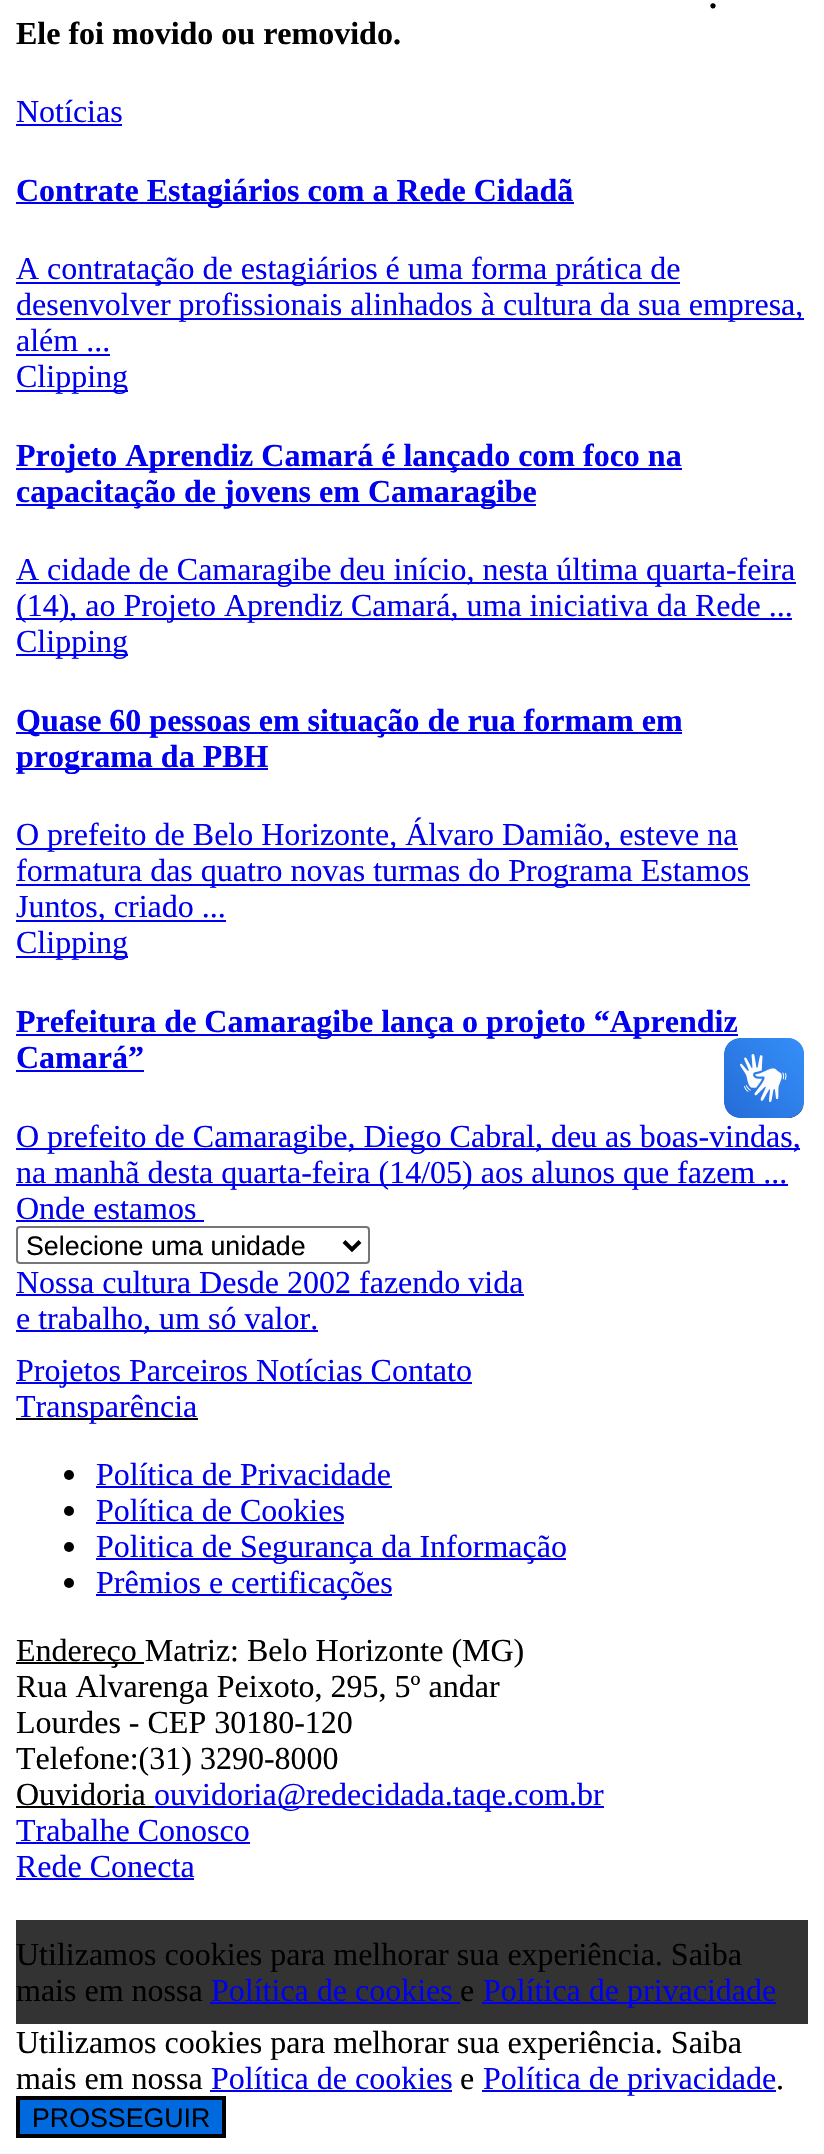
#include "include/core/SkBlurTypes.h"
#include "include/core/SkCanvas.h"
#include "include/core/SkData.h"
#include "include/core/SkFont.h"
#include "include/core/SkFontMgr.h"
#include "include/core/SkImage.h"
#include "include/core/SkMaskFilter.h"
#include "include/core/SkPaint.h"
#include "include/core/SkPathBuilder.h"
#include "include/core/SkTextBlob.h"
#include "include/effects/SkDashPathEffect.h"
#include "include/effects/SkGradientShader.h"
#include "include/utils/SkParsePath.h"

extern sk_sp<SkFontMgr> fontMgr;

void draw(SkCanvas* canvas) {
  SkPaint p;
  p.setAntiAlias(true);
  canvas->clear(SK_ColorWHITE);
  p.setColor(SkColorSetRGB(0, 0, 238));
  canvas->drawRect(SkRect::MakeLTRB(16, 124, 122, 126), p);
  canvas->drawRect(SkRect::MakeLTRB(16, 202, 574, 204), p);
  canvas->drawRect(SkRect::MakeLTRB(16, 282, 680, 284), p);
  canvas->drawRect(SkRect::MakeLTRB(16, 318, 804, 320), p);
  canvas->drawRect(SkRect::MakeLTRB(16, 354, 110, 356), p);
  canvas->drawRect(SkRect::MakeLTRB(16, 390, 128, 392), p);
  canvas->drawRect(SkRect::MakeLTRB(16, 468, 682, 470), p);
  canvas->drawRect(SkRect::MakeLTRB(16, 504, 536, 506), p);
  canvas->drawRect(SkRect::MakeLTRB(16, 582, 796, 584), p);
  canvas->drawRect(SkRect::MakeLTRB(16, 618, 792, 620), p);
  canvas->drawRect(SkRect::MakeLTRB(16, 654, 128, 656), p);
  canvas->drawRect(SkRect::MakeLTRB(16, 732, 682, 734), p);
  canvas->drawRect(SkRect::MakeLTRB(16, 768, 268, 770), p);
  canvas->drawRect(SkRect::MakeLTRB(16, 848, 738, 850), p);
  canvas->drawRect(SkRect::MakeLTRB(16, 884, 750, 886), p);
  canvas->drawRect(SkRect::MakeLTRB(16, 920, 226, 922), p);
  canvas->drawRect(SkRect::MakeLTRB(16, 956, 128, 958), p);
  canvas->drawRect(SkRect::MakeLTRB(16, 1034, 738, 1036), p);
  canvas->drawRect(SkRect::MakeLTRB(16, 1070, 144, 1072), p);
  canvas->drawRect(SkRect::MakeLTRB(16, 1148, 800, 1150), p);
  canvas->drawRect(SkRect::MakeLTRB(16, 1184, 788, 1186), p);
  canvas->drawRect(SkRect::MakeLTRB(16, 1220, 204, 1222), p);
  p.setStyle(SkPaint::kStroke_Style);
  p.setStrokeWidth(2);
  p.setColor(SkColorSetRGB(118, 118, 118));
  canvas->drawRoundRect(SkRect::MakeLTRB(17, 1227, 369, 1263), 3, 3, p);
  p.setStrokeWidth(4);
  p.setColor(SK_ColorBLACK);
  canvas->drawPath(SkPathBuilder().moveTo(344, 1241.5f).lineTo(352, 1249.5f).lineTo(360, 1241.5f).detach(), p);
  p.setStyle(SkPaint::kFill_Style);
  p.setColor(SkColorSetRGB(0, 0, 238));
  canvas->drawRect(SkRect::MakeLTRB(16, 1294, 524, 1296), p);
  canvas->drawRect(SkRect::MakeLTRB(16, 1330, 318, 1332), p);
  canvas->drawRect(SkRect::MakeLTRB(16, 1382, 472, 1384), p);
  p.setColor(SK_ColorBLACK);
  canvas->drawRect(SkRect::MakeLTRB(16, 1418, 198, 1420), p);
  canvas->drawCircle(69, 1475, 5, p);
  p.setColor(SkColorSetRGB(0, 0, 238));
  canvas->drawRect(SkRect::MakeLTRB(96, 1486, 392, 1488), p);
  p.setColor(SK_ColorBLACK);
  canvas->drawCircle(69, 1511, 5, p);
  p.setColor(SkColorSetRGB(0, 0, 238));
  canvas->drawRect(SkRect::MakeLTRB(96, 1522, 344, 1524), p);
  p.setColor(SK_ColorBLACK);
  canvas->drawCircle(69, 1547, 5, p);
  p.setColor(SkColorSetRGB(0, 0, 238));
  canvas->drawRect(SkRect::MakeLTRB(96, 1558, 566, 1560), p);
  p.setColor(SK_ColorBLACK);
  canvas->drawCircle(69, 1583, 5, p);
  p.setColor(SkColorSetRGB(0, 0, 238));
  canvas->drawRect(SkRect::MakeLTRB(96, 1594, 392, 1596), p);
  p.setColor(SK_ColorBLACK);
  canvas->drawRect(SkRect::MakeLTRB(16, 1662, 144, 1664), p);
  canvas->drawRect(SkRect::MakeLTRB(16, 1806, 154, 1808), p);
  p.setColor(SkColorSetRGB(0, 0, 238));
  canvas->drawRect(SkRect::MakeLTRB(154, 1806, 604, 1808), p);
  canvas->drawRect(SkRect::MakeLTRB(16, 1842, 250, 1844), p);
  canvas->drawRect(SkRect::MakeLTRB(16, 1878, 194, 1880), p);
  p.setColor(SkColorSetRGB(51, 51, 51));
  canvas->drawRect(SkRect::MakeLTRB(16, 1920, 808, 2024), p);
  p.setColor(SkColorSetRGB(0, 0, 238));
  canvas->drawRect(SkRect::MakeLTRB(210, 2002, 460, 2004), p);
  canvas->drawRect(SkRect::MakeLTRB(482, 2002, 776, 2004), p);
  canvas->drawRect(SkRect::MakeLTRB(210, 2090, 452, 2092), p);
  canvas->drawRect(SkRect::MakeLTRB(482, 2090, 776, 2092), p);
  p.setColor(SkColorSetRGB(0, 105, 222));
  canvas->drawRect(SkRect::MakeLTRB(18, 2098, 224, 2136), p);
  p.setStyle(SkPaint::kStroke_Style);
  p.setColor(SK_ColorBLACK);
  canvas->drawRect(SkRect::MakeLTRB(18, 2098, 224, 2136), p);
  SkFont font1(fontMgr->matchFamilyStyle("Liberation Serif", SkFontStyle::Bold()), 32);
  font1.setSubpixel(true);
  p.setStyle(SkPaint::kFill_Style);
  canvas->drawString(".", 709, 8, font1, p);
  canvas->drawString("Ele foi movido ou removido.", 16, 44, font1, p);
  SkFont font2(fontMgr->matchFamilyStyle("Liberation Serif", SkFontStyle::Normal()), 32);
  font2.setSubpixel(true);
  p.setColor(SkColorSetRGB(0, 0, 238));
  canvas->drawString("Notícias", 16, 122, font2, p);
  canvas->drawString("Contrate Estagiários com a Rede Cidadã", 16, 201, font1, p);
  canvas->drawString("A contratação de estagiários é uma forma prática de", 16, 279, font2, p);
  canvas->drawString("desenvolver profissionais alinhados à cultura da sua empresa,", 16, 315, font2, p);
  canvas->drawString("além ...", 16, 351, font2, p);
  canvas->drawString("Clipping", 16, 387, font2, p);
  canvas->drawString("Projeto Aprendiz Camará é lançado com foco na", 16, 466, font1, p);
  canvas->drawString("capacitação de jovens em Camaragibe", 16, 502, font1, p);
  canvas->drawString("A cidade de Camaragibe deu início, nesta última quarta-feira", 16, 580, font2, p);
  canvas->drawString("(14), ao Projeto Aprendiz Camará, uma iniciativa da Rede ...", 16, 616, font2, p);
  canvas->drawString("Clipping", 16, 652, font2, p);
  canvas->drawString("Quase 60 pessoas em situação de rua formam em", 16, 731, font1, p);
  canvas->drawString("programa da PBH", 16, 767, font1, p);
  canvas->drawString("O prefeito de Belo Horizonte, Álvaro Damião, esteve na", 16, 845, font2, p);
  canvas->drawString("formatura das quatro novas turmas do Programa Estamos", 16, 881, font2, p);
  canvas->drawString("Juntos, criado ...", 16, 917, font2, p);
  canvas->drawString("Clipping", 16, 953, font2, p);
  canvas->drawString("Prefeitura de Camaragibe lança o projeto “Aprendiz", 16, 1032, font1, p);
  canvas->drawString("Camará”", 16, 1068, font1, p);
  canvas->drawString("O prefeito de Camaragibe, Diego Cabral, deu as boas-vindas,", 16, 1147, font2, p);
  canvas->drawString("na manhã desta quarta-feira (14/05) aos alunos que fazem ...", 16, 1183, font2, p);
  canvas->drawImageRect(SkImages::DeferredFromEncodedData(SkData::MakeFromFileName("images/1.png")), SkRect::MakeLTRB(724, 1038, 804, 1118), SkSamplingOptions());
  canvas->drawImageRect(SkImages::DeferredFromEncodedData(SkData::MakeFromFileName("images/2.png")), SkRect::MakeLTRB(724, 1038, 804, 1118), SkSamplingOptions());
  canvas->drawString("Onde estamos", 16, 1219, font2, p);
  SkFont font3(fontMgr->matchFamilyStyle("Liberation Sans", SkFontStyle::Normal()), 26.75f);
  font3.setSubpixel(true);
  p.setColor(SK_ColorBLACK);
  canvas->drawString("Selecione uma unidade", 26, 1255, font3, p);
  p.setColor(SkColorSetRGB(0, 0, 238));
  canvas->drawString("Nossa cultura Desde 2002 fazendo vida", 16, 1293, font2, p);
  canvas->drawString("e trabalho, um só valor.", 16, 1329, font2, p);
  canvas->drawString("Projetos Parceiros Notícias Contato", 16, 1381, font2, p);
  canvas->drawString("Transparência", 16, 1417, font2, p);
  canvas->drawString("Política de Privacidade", 96, 1485, font2, p);
  canvas->drawString("Política de Cookies", 96, 1521, font2, p);
  canvas->drawString("Politica de Segurança da Informação", 96, 1557, font2, p);
  canvas->drawString("Prêmios e certificações", 96, 1593, font2, p);
  p.setColor(SK_ColorBLACK);
  canvas->drawString("Endereço Matriz: Belo Horizonte (MG)", 16, 1661, font2, p);
  canvas->drawString("Rua Alvarenga Peixoto, 295, 5º andar", 16, 1697, font2, p);
  canvas->drawString("Lourdes - CEP 30180-120", 16, 1733, font2, p);
  canvas->drawString("Telefone:(31) 3290-8000", 16, 1769, font2, p);
  canvas->drawString("Ouvidoria", 16, 1805, font2, p);
  p.setColor(SkColorSetRGB(0, 0, 238));
  canvas->drawString("ouvidoria@redecidada.taqe.com.br", 154, 1805, font2, p);
  canvas->drawString("Trabalhe Conosco", 16, 1841, font2, p);
  canvas->drawString("Rede Conecta", 16, 1877, font2, p);
  p.setColor(SK_ColorBLACK);
  canvas->drawString("Utilizamos cookies para melhorar sua experiência. Saiba", 16, 1965, font2, p);
  canvas->drawString("mais em nossa", 16, 2001, font2, p);
  p.setColor(SkColorSetRGB(0, 0, 238));
  canvas->drawString("Política de cookies", 211, 2001, font2, p);
  p.setColor(SK_ColorBLACK);
  canvas->drawString("e", 460, 2001, font2, p);
  p.setColor(SkColorSetRGB(0, 0, 238));
  canvas->drawString("Política de privacidade", 483, 2001, font2, p);
  p.setColor(SK_ColorBLACK);
  canvas->drawString("Utilizamos cookies para melhorar sua experiência. Saiba", 16, 2053, font2, p);
  canvas->drawString("mais em nossa", 16, 2089, font2, p);
  p.setColor(SkColorSetRGB(0, 0, 238));
  canvas->drawString("Política de cookies", 211, 2089, font2, p);
  p.setColor(SK_ColorBLACK);
  canvas->drawString("e", 460, 2089, font2, p);
  p.setColor(SkColorSetRGB(0, 0, 238));
  canvas->drawString("Política de privacidade", 483, 2089, font2, p);
  p.setColor(SK_ColorBLACK);
  canvas->drawString(".", 776, 2089, font2, p);
  canvas->drawString("PROSSEGUIR", 32, 2127, font3, p);
}
